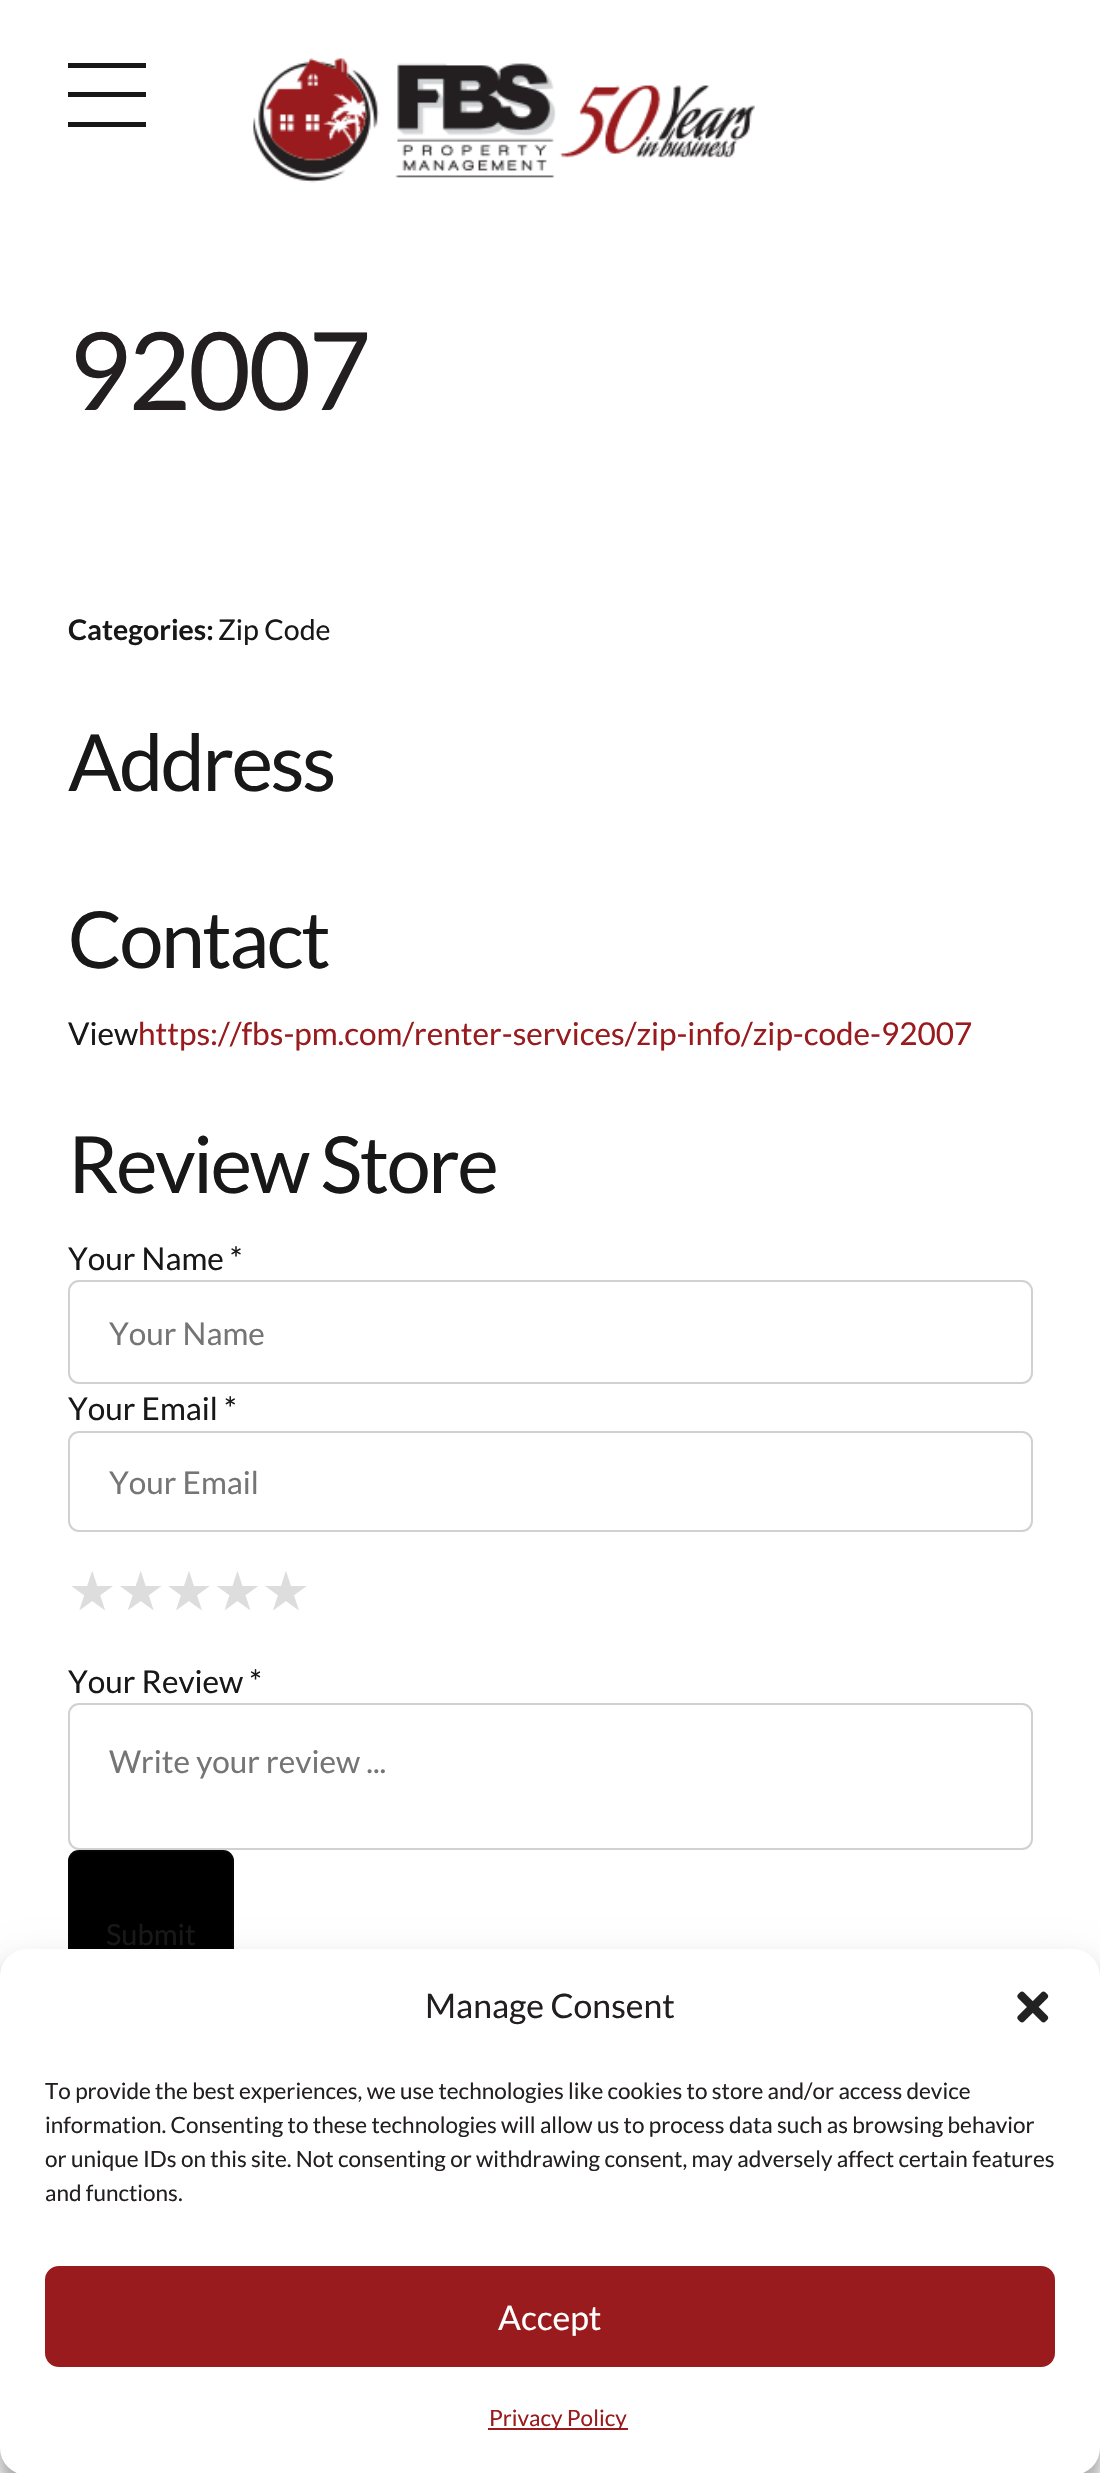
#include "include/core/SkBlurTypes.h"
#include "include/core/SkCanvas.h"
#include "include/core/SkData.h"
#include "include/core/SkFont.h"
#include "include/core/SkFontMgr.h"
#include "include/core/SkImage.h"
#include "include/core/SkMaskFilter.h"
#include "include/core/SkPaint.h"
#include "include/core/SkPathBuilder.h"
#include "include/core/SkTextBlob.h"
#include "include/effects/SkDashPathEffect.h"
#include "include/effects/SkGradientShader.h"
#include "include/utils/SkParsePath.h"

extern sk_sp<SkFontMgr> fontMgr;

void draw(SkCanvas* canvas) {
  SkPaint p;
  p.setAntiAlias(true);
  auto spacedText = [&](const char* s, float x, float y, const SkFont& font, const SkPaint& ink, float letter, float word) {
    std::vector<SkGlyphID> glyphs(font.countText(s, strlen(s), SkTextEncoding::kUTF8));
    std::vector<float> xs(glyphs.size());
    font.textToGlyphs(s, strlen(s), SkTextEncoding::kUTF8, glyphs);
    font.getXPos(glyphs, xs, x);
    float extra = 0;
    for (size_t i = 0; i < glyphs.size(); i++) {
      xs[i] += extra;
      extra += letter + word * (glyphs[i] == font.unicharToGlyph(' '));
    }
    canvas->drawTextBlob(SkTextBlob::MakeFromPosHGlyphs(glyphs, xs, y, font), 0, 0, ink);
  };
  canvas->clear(SK_ColorWHITE);
  p.setColor(SkColorSetRGB(24, 24, 24));
  canvas->drawRect(SkRect::MakeLTRB(68, 63, 146, 68), p);
  canvas->drawRect(SkRect::MakeLTRB(68, 92, 146, 97), p);
  canvas->drawRect(SkRect::MakeLTRB(68, 122, 146, 127), p);
  canvas->drawImageRect(SkImages::DeferredFromEncodedData(SkData::MakeFromFileName("images/1.png")), SkRect::MakeLTRB(253, 58, 755, 183), SkSamplingOptions());
  p.setStyle(SkPaint::kStroke_Style);
  p.setStrokeWidth(2);
  p.setColor(SkColorSetRGB(209, 209, 209));
  canvas->drawRoundRect(SkRect::MakeLTRB(69, 1281, 1032, 1383), 10, 10, p);
  canvas->drawRoundRect(SkRect::MakeLTRB(69, 1432, 1032, 1531), 10, 10, p);
  canvas->drawRoundRect(SkRect::MakeLTRB(69, 1704, 1032, 1849), 10, 10, p);
  p.setStyle(SkPaint::kFill_Style);
  p.setColor(SK_ColorBLACK);
  canvas->drawRoundRect(SkRect::MakeLTRB(68, 1850, 234, 2021), 11, 11, p);
  p.setStyle(SkPaint::kStroke_Style);
  p.setColor(SkColorSetARGB(51, 24, 24, 24));
  canvas->drawRoundRect(SkRect::MakeLTRB(69, 1851, 233, 2020), 10, 10, p);
  p.setStyle(SkPaint::kFill_Style);
  p.setColor(SkColorSetARGB(59, 0, 0, 0));
  p.setMaskFilter(SkMaskFilter::MakeBlur(kNormal_SkBlurStyle, 7));
  canvas->drawRoundRect(SkRect::MakeLTRB(0, 1962, 1100, 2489), 27, 27, p);
  p.setMaskFilter(nullptr);
  p.setColor(SkColorSetARGB(48, 0, 0, 0));
  p.setMaskFilter(SkMaskFilter::MakeBlur(kNormal_SkBlurStyle, 22.5f));
  canvas->drawRoundRect(SkRect::MakeLTRB(0, 1971, 1100, 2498), 27, 27, p);
  p.setMaskFilter(nullptr);
  p.setColor(SkColorSetRGB(128, 128, 128));
  p.setMaskFilter(SkMaskFilter::MakeBlur(kNormal_SkBlurStyle, 5.5f));
  canvas->drawRoundRect(SkRect::MakeLTRB(943, 2309, 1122, 2444), 5, 5, p);
  p.setMaskFilter(nullptr);
  p.setColor(SK_ColorWHITE);
  canvas->drawRoundRect(SkRect::MakeLTRB(0, 1949, 1100, 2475), 27, 27, p);
  canvas->drawImageRect(SkImages::DeferredFromEncodedData(SkData::MakeFromFileName("images/2.png")), SkRect::MakeLTRB(1017, 1991, 1049, 2023), SkSamplingOptions());
  p.setColor(SkColorSetRGB(153, 27, 30));
  canvas->drawRoundRect(SkRect::MakeLTRB(46, 2267, 1054, 2366), 13, 13, p);
  p.setStyle(SkPaint::kStroke_Style);
  canvas->drawRoundRect(SkRect::MakeLTRB(46, 2267, 1054, 2366), 13, 13, p);
  p.setStyle(SkPaint::kFill_Style);
  canvas->drawRect(SkRect::MakeLTRB(488, 2428, 628, 2430), p);
  SkFont font1(fontMgr->matchFamilyStyle("Lato", SkFontStyle::Normal()), 108);
  font1.setSubpixel(true);
  p.setColor(SkColorSetRGB(35, 31, 32));
  spacedText("92007", 68, 410, font1, p, -2.5f, 0);
  SkFont font2(fontMgr->matchFamilyStyle("Lato", SkFontStyle::Bold()), 28.5f);
  font2.setSubpixel(true);
  p.setColor(SkColorSetRGB(24, 24, 24));
  canvas->drawString("Categories:", 68, 640, font2, p);
  SkFont font3(fontMgr->matchFamilyStyle("Lato", SkFontStyle::Normal()), 28.5f);
  font3.setSubpixel(true);
  canvas->drawString("Zip Code", 218, 640, font3, p);
  SkFont font4(fontMgr->matchFamilyStyle("Lato", SkFontStyle::Normal()), 78.75f);
  font4.setSubpixel(true);
  spacedText("Address", 68, 791, font4, p, -2.4f, 0);
  spacedText("Contact", 68, 968, font4, p, -2.4f, 0);
  SkFont font5(fontMgr->matchFamilyStyle("Lato", SkFontStyle::Normal()), 31.5f);
  font5.setSubpixel(true);
  canvas->drawString("View", 68, 1045, font5, p);
  p.setColor(SkColorSetRGB(153, 27, 30));
  canvas->drawString("https://fbs-pm.com/renter-services/zip-info/zip-code-92007", 138, 1045, font5, p);
  p.setColor(SkColorSetRGB(24, 24, 24));
  spacedText("Review Store", 68, 1193, font4, p, -2.4f, 0);
  canvas->drawString("Your Name *", 68, 1270, font5, p);
  p.setColor(SkColorSetRGB(117, 117, 117));
  canvas->drawString("Your Name", 109, 1345, font5, p);
  p.setColor(SkColorSetRGB(24, 24, 24));
  canvas->drawString("Your Email *", 68, 1420, font5, p);
  p.setColor(SkColorSetRGB(117, 117, 117));
  canvas->drawString("Your Email", 109, 1494, font5, p);
  SkFont font6(fontMgr->matchFamilyStyle("DejaVu Sans", SkFontStyle::Normal()), 54);
  font6.setSubpixel(true);
  p.setColor(SkColorSetRGB(221, 221, 221));
  canvas->drawString("★★★★★", 68, 1610, font6, p);
  p.setColor(SkColorSetRGB(24, 24, 24));
  canvas->drawString("Your Review *", 68, 1693, font5, p);
  p.setColor(SkColorSetRGB(117, 117, 117));
  canvas->drawString("Write your review ...", 109, 1773, font5, p);
  SkFont font7(fontMgr->matchFamilyStyle("Lato", SkFontStyle::Normal()), 29);
  font7.setSubpixel(true);
  p.setColor(SkColorSetRGB(24, 24, 24));
  canvas->drawString("Submit", 106, 1945, font7, p);
  SkFont font8(fontMgr->matchFamilyStyle("Lato", SkFontStyle::Normal()), 33.75f);
  font8.setSubpixel(true);
  p.setColor(SkColorSetRGB(35, 31, 32));
  canvas->drawString("Manage Consent", 425, 2018, font8, p);
  SkFont font9(fontMgr->matchFamilyStyle("Lato", SkFontStyle::Normal()), 22.5f);
  font9.setSubpixel(true);
  canvas->drawString("To provide the best experiences, we use technologies like cookies to store and/or access device", 45, 2099, font9, p);
  canvas->drawString("information. Consenting to these technologies will allow us to process data such as browsing behavior", 45, 2133, font9, p);
  canvas->drawString("or unique IDs on this site. Not consenting or withdrawing consent, may adversely affect certain features", 45, 2167, font9, p);
  canvas->drawString("and functions.", 45, 2201, font9, p);
  p.setColor(SK_ColorWHITE);
  canvas->drawString("Accept", 498, 2330, font8, p);
  p.setColor(SkColorSetRGB(153, 27, 30));
  canvas->drawString("Privacy Policy", 489, 2426, font9, p);
}
